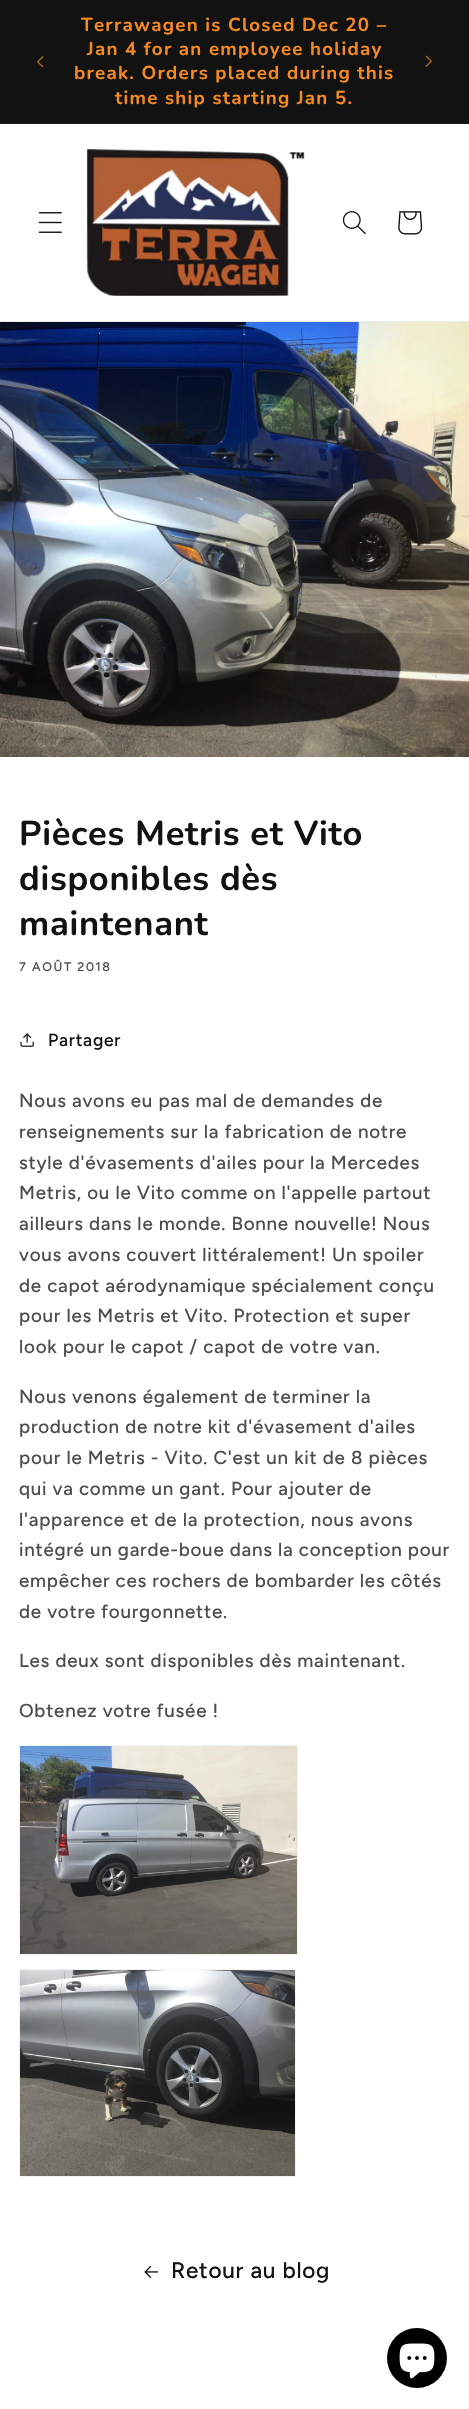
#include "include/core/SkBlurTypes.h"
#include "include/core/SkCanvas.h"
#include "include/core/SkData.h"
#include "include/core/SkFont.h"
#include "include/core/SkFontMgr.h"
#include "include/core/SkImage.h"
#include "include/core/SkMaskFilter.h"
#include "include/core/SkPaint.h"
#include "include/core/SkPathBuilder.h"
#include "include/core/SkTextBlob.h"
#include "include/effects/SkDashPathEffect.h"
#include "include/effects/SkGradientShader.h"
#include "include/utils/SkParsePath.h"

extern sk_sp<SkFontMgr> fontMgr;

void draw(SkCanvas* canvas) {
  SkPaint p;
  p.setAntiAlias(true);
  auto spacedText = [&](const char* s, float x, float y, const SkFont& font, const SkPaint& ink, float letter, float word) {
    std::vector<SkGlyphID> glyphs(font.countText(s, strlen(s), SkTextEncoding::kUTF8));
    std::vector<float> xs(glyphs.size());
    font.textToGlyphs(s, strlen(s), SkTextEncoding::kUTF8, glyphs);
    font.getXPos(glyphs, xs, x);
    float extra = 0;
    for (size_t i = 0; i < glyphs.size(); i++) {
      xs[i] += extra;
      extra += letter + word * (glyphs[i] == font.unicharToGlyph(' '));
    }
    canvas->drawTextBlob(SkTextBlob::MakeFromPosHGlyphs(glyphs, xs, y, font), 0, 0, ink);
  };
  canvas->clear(SK_ColorWHITE);
  p.setColor(SkColorSetRGB(18, 18, 18));
  canvas->drawRect(SkRect::MakeLTRB(0, 0, 469, 123), p);
  p.setColor(SkColorSetRGB(36, 28, 19));
  canvas->drawRect(SkRect::MakeLTRB(0, 123, 469, 124), p);
  canvas->drawImageRect(SkImages::DeferredFromEncodedData(SkData::MakeFromFileName("images/1.png")), SkRect::MakeLTRB(37, 56, 44, 68), SkSamplingOptions());
  canvas->drawImageRect(SkImages::DeferredFromEncodedData(SkData::MakeFromFileName("images/2.png")), SkRect::MakeLTRB(425, 55, 432, 67), SkSamplingOptions());
  p.setColor(SkColorSetRGB(236, 236, 236));
  canvas->drawRect(SkRect::MakeLTRB(0, 321, 469, 322), p);
  canvas->drawImageRect(SkImages::DeferredFromEncodedData(SkData::MakeFromFileName("images/3.png")), SkRect::MakeLTRB(38, 212, 62, 233), SkSamplingOptions());
  canvas->drawImageRect(SkImages::DeferredFromEncodedData(SkData::MakeFromFileName("images/4.png")), SkRect::MakeLTRB(86, 148, 305, 296), SkSamplingOptions());
  canvas->drawImageRect(SkImages::DeferredFromEncodedData(SkData::MakeFromFileName("images/5.png")), SkRect::MakeLTRB(342, 211, 366, 235), SkSamplingOptions());
  canvas->drawImageRect(SkImages::DeferredFromEncodedData(SkData::MakeFromFileName("images/6.png")), SkRect::MakeLTRB(398, 211, 423, 235), SkSamplingOptions());
  canvas->drawImageRect(SkImages::DeferredFromEncodedData(SkData::MakeFromFileName("images/7.png")), SkRect::MakeLTRB(0, 322, 469, 757), SkSamplingOptions());
  canvas->drawImageRect(SkImages::DeferredFromEncodedData(SkData::MakeFromFileName("images/8.png")), SkRect::MakeLTRB(20, 1033, 34, 1047), SkSamplingOptions());
  p.setStyle(SkPaint::kStroke_Style);
  p.setStrokeWidth(1);
  p.setColor(SkColorSetRGB(243, 243, 243));
  canvas->drawRect(SkRect::MakeLTRB(19.5f, 1745.5f, 297.5f, 1954.5f), p);
  canvas->drawImageRect(SkImages::DeferredFromEncodedData(SkData::MakeFromFileName("images/9.png")), SkRect::MakeLTRB(20, 1746, 297, 1954), SkSamplingOptions());
  canvas->drawRect(SkRect::MakeLTRB(19.5f, 1969.5f, 295.5f, 2176.5f), p);
  canvas->drawImageRect(SkImages::DeferredFromEncodedData(SkData::MakeFromFileName("images/10.png")), SkRect::MakeLTRB(20, 1970, 295, 2176), SkSamplingOptions());
  canvas->drawImageRect(SkImages::DeferredFromEncodedData(SkData::MakeFromFileName("images/11.png")), SkRect::MakeLTRB(144, 2266, 158, 2278), SkSamplingOptions());
  p.setStyle(SkPaint::kFill_Style);
  p.setColor(SK_ColorBLACK);
  canvas->drawCircle(417, 2358, 30, p);
  canvas->drawImageRect(SkImages::DeferredFromEncodedData(SkData::MakeFromFileName("images/12.png")), SkRect::MakeLTRB(399, 2343, 435, 2379), SkSamplingOptions());
  SkFont font1(fontMgr->matchFamilyStyle("Nunito", SkFontStyle::Bold()), 18.75f);
  font1.setSubpixel(true);
  p.setColor(SkColorSetRGB(244, 138, 35));
  spacedText("Terrawagen is Closed Dec 20 –", 81, 31, font1, p, 1.25f, 0);
  spacedText("Jan 4 for an employee holiday", 87, 55, font1, p, 1.25f, 0);
  spacedText("break. Orders placed during this", 74, 79, font1, p, 1.25f, 0);
  spacedText("time ship starting Jan 5.", 115, 104, font1, p, 1.25f, 0);
  SkFont font2(fontMgr->matchFamilyStyle("Nunito", SkFontStyle::Bold()), 34.5f);
  font2.setSubpixel(true);
  p.setColor(SkColorSetRGB(18, 18, 18));
  spacedText("Pièces Metris et Vito", 19, 845, font2, p, 0.7f, 0);
  spacedText("disponibles dès", 19, 890, font2, p, 0.7f, 0);
  spacedText("maintenant", 19, 935, font2, p, 0.7f, 0);
  SkFont font3(fontMgr->matchFamilyStyle("Figtree", SkFontStyle(500, SkFontStyle::kNormal_Width, SkFontStyle::kUpright_Slant)), 12.5f);
  font3.setSubpixel(true);
  p.setColor(SkColorSetRGB(77, 77, 77));
  spacedText("7 AOÛT 2018", 19, 971, font3, p, 1.6f, 0);
  SkFont font4(fontMgr->matchFamilyStyle("Figtree", SkFontStyle(500, SkFontStyle::kNormal_Width, SkFontStyle::kUpright_Slant)), 17.5f);
  font4.setSubpixel(true);
  p.setColor(SkColorSetRGB(18, 18, 18));
  spacedText("Partager", 48, 1046, font4, p, 0.75f, 0);
  SkFont font5(fontMgr->matchFamilyStyle("Figtree", SkFontStyle(500, SkFontStyle::kNormal_Width, SkFontStyle::kUpright_Slant)), 18.75f);
  font5.setSubpixel(true);
  p.setColor(SkColorSetRGB(77, 77, 77));
  spacedText("Nous avons eu pas mal de demandes de", 19, 1107, font5, p, 0.75f, 0);
  spacedText("renseignements sur la fabrication de notre", 19, 1138, font5, p, 0.75f, 0);
  spacedText("style d'évasements d'ailes pour la Mercedes", 19, 1169, font5, p, 0.75f, 0);
  spacedText("Metris, ou le Vito comme on l'appelle partout", 19, 1199, font5, p, 0.75f, 0);
  spacedText("ailleurs dans le monde. Bonne nouvelle! Nous", 19, 1230, font5, p, 0.75f, 0);
  spacedText("vous avons couvert littéralement! Un spoiler", 19, 1261, font5, p, 0.75f, 0);
  spacedText("de capot aérodynamique spécialement conçu", 19, 1292, font5, p, 0.75f, 0);
  spacedText("pour les Metris et Vito. Protection et super", 19, 1322, font5, p, 0.75f, 0);
  spacedText("look pour le capot / capot de votre van.", 19, 1353, font5, p, 0.75f, 0);
  spacedText("Nous venons également de terminer la", 19, 1403, font5, p, 0.75f, 0);
  spacedText("production de notre kit d'évasement d'ailes", 19, 1433, font5, p, 0.75f, 0);
  spacedText("pour le Metris - Vito. C'est un kit de 8 pièces", 19, 1464, font5, p, 0.75f, 0);
  spacedText("qui va comme un gant. Pour ajouter de", 19, 1495, font5, p, 0.75f, 0);
  spacedText("l'apparence et de la protection, nous avons", 19, 1526, font5, p, 0.75f, 0);
  spacedText("intégré un garde-boue dans la conception pour", 19, 1556, font5, p, 0.75f, 0);
  spacedText("empêcher ces rochers de bombarder les côtés", 19, 1587, font5, p, 0.75f, 0);
  spacedText("de votre fourgonnette.", 19, 1618, font5, p, 0.75f, 0);
  spacedText("Les deux sont disponibles dès maintenant.", 19, 1667, font5, p, 0.75f, 0);
  spacedText("Obtenez votre fusée !", 19, 1717, font5, p, 0.75f, 0);
  SkFont font6(fontMgr->matchFamilyStyle("Figtree", SkFontStyle(500, SkFontStyle::kNormal_Width, SkFontStyle::kUpright_Slant)), 22.5f);
  font6.setSubpixel(true);
  p.setColor(SkColorSetRGB(18, 18, 18));
  spacedText("Retour au blog", 171, 2278, font6, p, 0.75f, 0);
}
